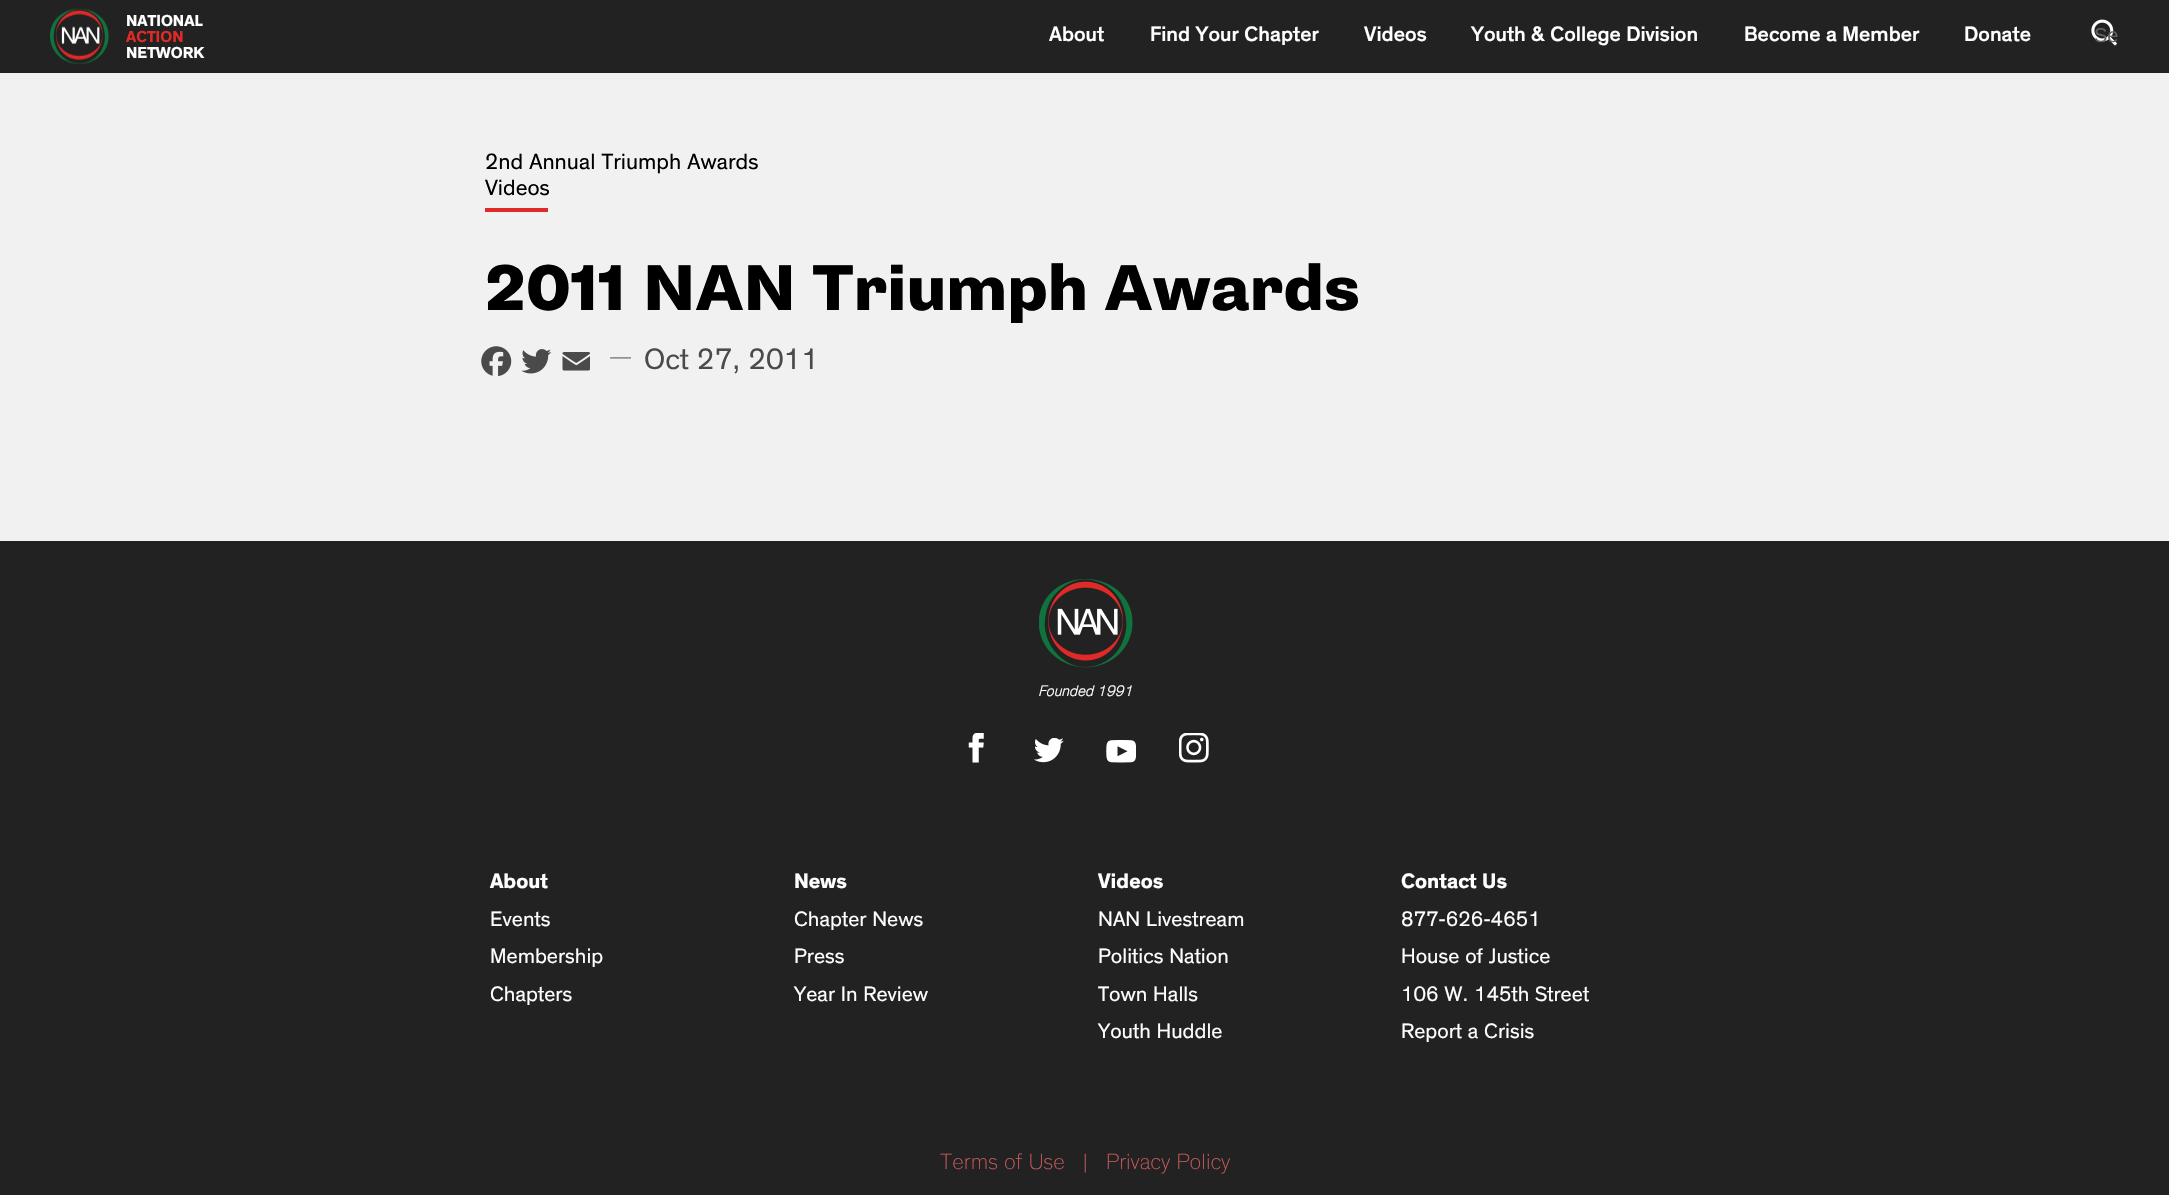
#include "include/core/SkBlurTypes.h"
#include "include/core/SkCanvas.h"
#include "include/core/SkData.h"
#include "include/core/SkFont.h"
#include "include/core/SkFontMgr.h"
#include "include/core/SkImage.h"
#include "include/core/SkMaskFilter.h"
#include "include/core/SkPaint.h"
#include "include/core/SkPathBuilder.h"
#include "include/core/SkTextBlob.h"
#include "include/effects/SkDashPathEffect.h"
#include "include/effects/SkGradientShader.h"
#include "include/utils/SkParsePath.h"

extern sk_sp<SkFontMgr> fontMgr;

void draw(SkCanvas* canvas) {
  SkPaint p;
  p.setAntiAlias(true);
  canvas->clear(SkColorSetRGB(241, 241, 241));
  p.setColor(SkColorSetRGB(34, 34, 34));
  canvas->drawRect(SkRect::MakeLTRB(0, 0, 2169, 73), p);
  canvas->drawImageRect(SkImages::DeferredFromEncodedData(SkData::MakeFromFileName("images/1.png")), SkRect::MakeLTRB(50, 8, 109, 64), SkSamplingOptions());
  canvas->drawImageRect(SkImages::DeferredFromEncodedData(SkData::MakeFromFileName("images/2.png")), SkRect::MakeLTRB(2091, 19, 2117, 46), SkSamplingOptions());
  p.setColor(SkColorSetRGB(223, 42, 39));
  canvas->drawRect(SkRect::MakeLTRB(485, 208, 548, 212), p);
  canvas->drawImageRect(SkImages::DeferredFromEncodedData(SkData::MakeFromFileName("images/3.png")), SkRect::MakeLTRB(481, 346, 512, 377), SkSamplingOptions());
  canvas->drawImageRect(SkImages::DeferredFromEncodedData(SkData::MakeFromFileName("images/4.png")), SkRect::MakeLTRB(521, 349, 552, 374), SkSamplingOptions());
  canvas->drawImageRect(SkImages::DeferredFromEncodedData(SkData::MakeFromFileName("images/5.png")), SkRect::MakeLTRB(562, 352, 590, 371), SkSamplingOptions());
  p.setColor(SkColorSetRGB(34, 34, 34));
  canvas->drawRect(SkRect::MakeLTRB(0, 541, 2169, 1195), p);
  canvas->drawImageRect(SkImages::DeferredFromEncodedData(SkData::MakeFromFileName("images/6.png")), SkRect::MakeLTRB(1039, 579, 1133, 668), SkSamplingOptions());
  canvas->drawImageRect(SkImages::DeferredFromEncodedData(SkData::MakeFromFileName("images/7.png")), SkRect::MakeLTRB(968, 733, 984, 763), SkSamplingOptions());
  canvas->drawImageRect(SkImages::DeferredFromEncodedData(SkData::MakeFromFileName("images/8.png")), SkRect::MakeLTRB(1034, 738, 1064, 763), SkSamplingOptions());
  canvas->drawImageRect(SkImages::DeferredFromEncodedData(SkData::MakeFromFileName("images/9.png")), SkRect::MakeLTRB(1106, 740, 1136, 763), SkSamplingOptions());
  canvas->drawImageRect(SkImages::DeferredFromEncodedData(SkData::MakeFromFileName("images/10.png")), SkRect::MakeLTRB(1179, 733, 1209, 763), SkSamplingOptions());
  SkFont font1(fontMgr->matchFamilyStyle("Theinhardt", SkFontStyle::Bold()), 16.25f);
  font1.setSubpixel(true);
  p.setColor(SK_ColorWHITE);
  canvas->drawString("NATIONAL", 126, 26, font1, p);
  p.setColor(SkColorSetRGB(223, 42, 39));
  canvas->drawString("ACTION", 126, 42, font1, p);
  p.setColor(SK_ColorWHITE);
  canvas->drawString("NETWORK", 126, 58, font1, p);
  SkFont font2(fontMgr->matchFamilyStyle("Theinhardt", SkFontStyle(500, SkFontStyle::kNormal_Width, SkFontStyle::kUpright_Slant)), 21.25f);
  font2.setSubpixel(true);
  canvas->drawString("About", 1049, 41, font2, p);
  canvas->drawString("Find Your Chapter", 1150, 41, font2, p);
  canvas->drawString("Videos", 1364, 41, font2, p);
  canvas->drawString("Youth & College Division", 1471, 41, font2, p);
  canvas->drawString("Become a Member", 1744, 41, font2, p);
  canvas->drawString("Donate", 1964, 41, font2, p);
  SkFont font3(fontMgr->matchFamilyStyle("Liberation Sans", SkFontStyle::Normal()), 20);
  font3.setSubpixel(true);
  p.setColor(SkColorSetRGB(99, 99, 99));
  canvas->drawString("Se", 2094, 42, font3, p);
  SkFont font4(fontMgr->matchFamilyStyle("Theinhardt", SkFontStyle::Normal()), 22.5f);
  font4.setSubpixel(true);
  p.setColor(SK_ColorBLACK);
  canvas->drawString("2nd Annual Triumph Awards", 485, 169, font4, p);
  canvas->drawString("Videos", 485, 195, font4, p);
  SkFont font5(fontMgr->matchFamilyStyle("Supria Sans", SkFontStyle(900, SkFontStyle::kNormal_Width, SkFontStyle::kUpright_Slant)), 65);
  font5.setSubpixel(true);
  canvas->drawString("2011 NAN Triumph Awards", 485, 310, font5, p);
  SkFont font6(fontMgr->matchFamilyStyle("Theinhardt", SkFontStyle(100, SkFontStyle::kNormal_Width, SkFontStyle::kUpright_Slant)), 30);
  font6.setSubpixel(true);
  p.setColor(SkColorSetRGB(74, 74, 74));
  canvas->drawString("—", 609, 366, font6, p);
  SkFont font7(fontMgr->matchFamilyStyle("Theinhardt", SkFontStyle::Normal()), 30);
  font7.setSubpixel(true);
  canvas->drawString("Oct 27, 2011", 644, 369, font7, p);
  SkFont font8(fontMgr->matchFamilyStyle("Theinhardt", SkFontStyle::BoldItalic()), 15);
  font8.setSubpixel(true);
  p.setColor(SK_ColorWHITE);
  canvas->drawString("Founded 1991", 1038, 696, font8, p);
  SkFont font9(fontMgr->matchFamilyStyle("Theinhardt", SkFontStyle::Bold()), 21.25f);
  font9.setSubpixel(true);
  canvas->drawString("About", 490, 888, font9, p);
  SkFont font10(fontMgr->matchFamilyStyle("Theinhardt", SkFontStyle::Normal()), 21.25f);
  font10.setSubpixel(true);
  canvas->drawString("Events", 490, 926, font10, p);
  canvas->drawString("Membership", 490, 963, font10, p);
  canvas->drawString("Chapters", 490, 1001, font10, p);
  canvas->drawString("News", 794, 888, font9, p);
  canvas->drawString("Chapter News", 794, 926, font10, p);
  canvas->drawString("Press", 794, 963, font10, p);
  canvas->drawString("Year In Review", 794, 1001, font10, p);
  canvas->drawString("Videos", 1098, 888, font9, p);
  canvas->drawString("NAN Livestream", 1098, 926, font10, p);
  canvas->drawString("Politics Nation", 1098, 963, font10, p);
  canvas->drawString("Town Halls", 1098, 1001, font10, p);
  canvas->drawString("Youth Huddle", 1098, 1038, font10, p);
  canvas->drawString("Contact Us", 1401, 888, font9, p);
  canvas->drawString("877-626-4651", 1401, 926, font10, p);
  canvas->drawString("House of Justice", 1401, 963, font10, p);
  canvas->drawString("106 W. 145th Street", 1401, 1001, font10, p);
  canvas->drawString("Report a Crisis", 1401, 1038, font10, p);
  SkFont font11(fontMgr->matchFamilyStyle("Theinhardt", SkFontStyle(100, SkFontStyle::kNormal_Width, SkFontStyle::kUpright_Slant)), 22.5f);
  font11.setSubpixel(true);
  p.setColor(SkColorSetRGB(205, 92, 92));
  canvas->drawString("Terms of Use", 940, 1169, font11, p);
  canvas->drawString("|", 1083, 1169, font11, p);
  canvas->drawString("Privacy Policy", 1106, 1169, font11, p);
}
